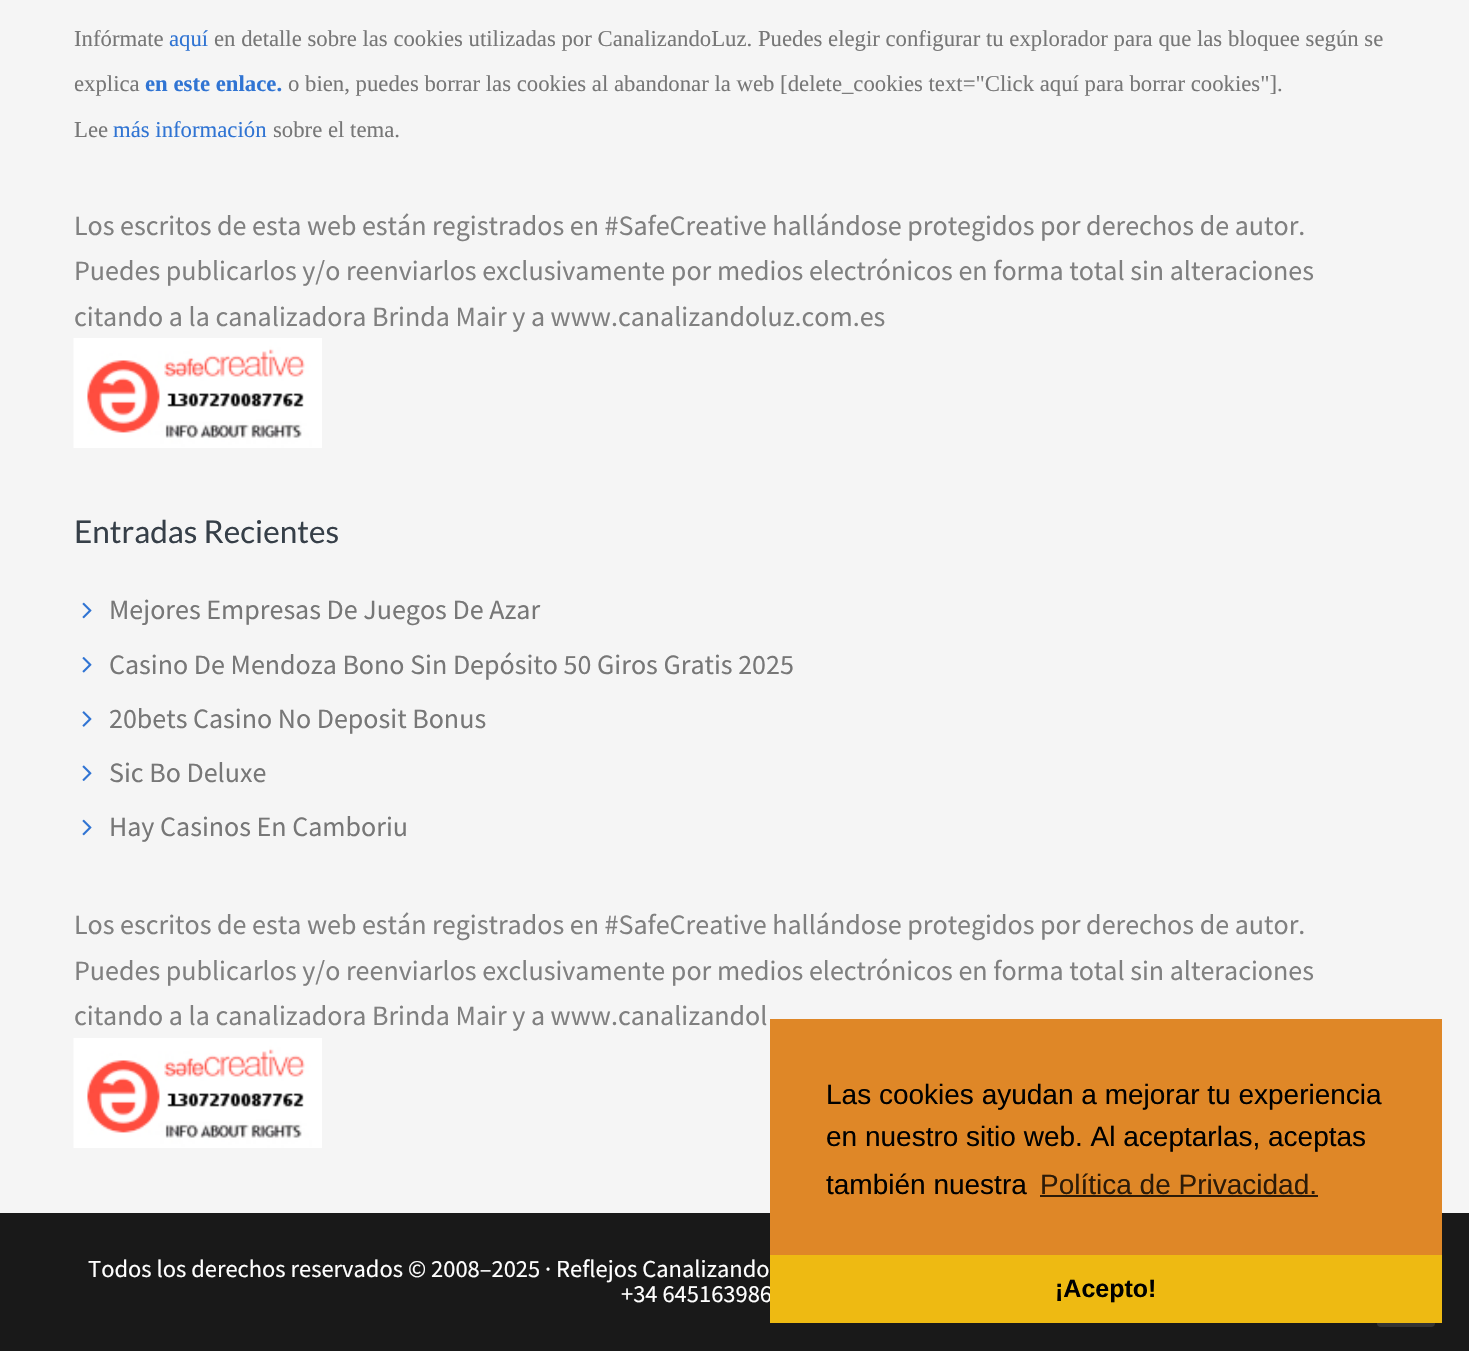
#include "include/core/SkBlurTypes.h"
#include "include/core/SkCanvas.h"
#include "include/core/SkData.h"
#include "include/core/SkFont.h"
#include "include/core/SkFontMgr.h"
#include "include/core/SkImage.h"
#include "include/core/SkMaskFilter.h"
#include "include/core/SkPaint.h"
#include "include/core/SkPathBuilder.h"
#include "include/core/SkTextBlob.h"
#include "include/effects/SkDashPathEffect.h"
#include "include/effects/SkGradientShader.h"
#include "include/utils/SkParsePath.h"

extern sk_sp<SkFontMgr> fontMgr;

void draw(SkCanvas* canvas) {
  SkPaint p;
  p.setAntiAlias(true);
  canvas->clear(SkColorSetRGB(245, 245, 245));
  canvas->drawImageRect(SkImages::DeferredFromEncodedData(SkData::MakeFromFileName("images/1.png")), SkRect::MakeLTRB(73, 338, 322, 448), SkSamplingOptions());
  canvas->drawImageRect(SkImages::DeferredFromEncodedData(SkData::MakeFromFileName("images/2.png")), SkRect::MakeLTRB(82, 602, 92, 619), SkSamplingOptions());
  canvas->drawImageRect(SkImages::DeferredFromEncodedData(SkData::MakeFromFileName("images/3.png")), SkRect::MakeLTRB(82, 657, 92, 673), SkSamplingOptions());
  canvas->drawImageRect(SkImages::DeferredFromEncodedData(SkData::MakeFromFileName("images/4.png")), SkRect::MakeLTRB(82, 711, 92, 727), SkSamplingOptions());
  canvas->drawImageRect(SkImages::DeferredFromEncodedData(SkData::MakeFromFileName("images/5.png")), SkRect::MakeLTRB(82, 765, 92, 781), SkSamplingOptions());
  canvas->drawImageRect(SkImages::DeferredFromEncodedData(SkData::MakeFromFileName("images/2.png")), SkRect::MakeLTRB(82, 819, 92, 836), SkSamplingOptions());
  canvas->drawImageRect(SkImages::DeferredFromEncodedData(SkData::MakeFromFileName("images/1.png")), SkRect::MakeLTRB(73, 1038, 322, 1148), SkSamplingOptions());
  p.setColor(SkColorSetRGB(25, 25, 25));
  canvas->drawRect(SkRect::MakeLTRB(0, 1213, 1469, 1351), p);
  p.setColor(SkColorSetRGB(51, 51, 51));
  canvas->drawRoundRect(SkRect::MakeLTRB(1377, 1274, 1435, 1327), 4, 4, p);
  p.setColor(SkColorSetRGB(223, 135, 39));
  canvas->drawRect(SkRect::MakeLTRB(770, 1019, 1442, 1255), p);
  p.setColor(SkColorSetRGB(45, 27, 8));
  canvas->drawRect(SkRect::MakeLTRB(1040, 1195, 1318, 1197), p);
  SkFont font1(fontMgr->matchFamilyStyle("Liberation Serif", SkFontStyle::Normal()), 22.75f);
  font1.setSubpixel(true);
  p.setColor(SkColorSetRGB(119, 119, 119));
  canvas->drawString("Infórmate", 74, 46, font1, p);
  p.setColor(SkColorSetRGB(48, 116, 211));
  canvas->drawString("aquí", 169, 46, font1, p);
  p.setColor(SkColorSetRGB(119, 119, 119));
  canvas->drawString("en detalle sobre las cookies utilizadas por CanalizandoLuz. Puedes elegir configurar tu explorador para que las bloquee según se", 214, 46, font1, p);
  canvas->drawString("explica", 74, 91, font1, p);
  SkFont font2(fontMgr->matchFamilyStyle("Liberation Serif", SkFontStyle::Bold()), 22.75f);
  font2.setSubpixel(true);
  p.setColor(SkColorSetRGB(48, 116, 211));
  canvas->drawString("en este enlace.", 145, 91, font2, p);
  p.setColor(SkColorSetRGB(119, 119, 119));
  canvas->drawString("o bien, puedes borrar las cookies al abandonar la web [delete_cookies text=\"Click aquí para borrar cookies\"].", 288, 91, font1, p);
  canvas->drawString("Lee", 74, 137, font1, p);
  p.setColor(SkColorSetRGB(48, 116, 211));
  canvas->drawString("más información", 113, 137, font1, p);
  p.setColor(SkColorSetRGB(119, 119, 119));
  canvas->drawString("sobre el tema.", 273, 137, font1, p);
  SkFont font3(fontMgr->matchFamilyStyle("Source Sans Pro", SkFontStyle::Normal()), 28);
  font3.setSubpixel(true);
  p.setColor(SkColorSetRGB(128, 128, 128));
  canvas->drawString("Los escritos de esta web están registrados en #SafeCreative hallándose protegidos por derechos de autor.", 74, 235, font3, p);
  canvas->drawString("Puedes publicarlos y/o reenviarlos exclusivamente por medios electrónicos en forma total sin alteraciones", 74, 280, font3, p);
  canvas->drawString("citando a la canalizadora Brinda Mair y a www.canalizandoluz.com.es", 74, 326, font3, p);
  SkFont font4(fontMgr->matchFamilyStyle("Lato", SkFontStyle::Normal()), 31.5f);
  font4.setSubpixel(true);
  p.setColor(SkColorSetRGB(54, 63, 72));
  canvas->drawString("Entradas Recientes", 74, 543, font4, p);
  p.setColor(SkColorSetRGB(119, 119, 119));
  canvas->drawString("Mejores Empresas De Juegos De Azar", 109, 619, font3, p);
  canvas->drawString("Casino De Mendoza Bono Sin Depósito 50 Giros Gratis 2025", 109, 674, font3, p);
  canvas->drawString("20bets Casino No Deposit Bonus", 109, 728, font3, p);
  canvas->drawString("Sic Bo Deluxe", 109, 782, font3, p);
  canvas->drawString("Hay Casinos En Camboriu", 109, 836, font3, p);
  p.setColor(SkColorSetRGB(128, 128, 128));
  canvas->drawString("Los escritos de esta web están registrados en #SafeCreative hallándose protegidos por derechos de autor.", 74, 934, font3, p);
  canvas->drawString("Puedes publicarlos y/o reenviarlos exclusivamente por medios electrónicos en forma total sin alteraciones", 74, 980, font3, p);
  canvas->drawString("citando a la canalizadora Brinda Mair y a www.canalizandol", 74, 1025, font3, p);
  SkFont font5(fontMgr->matchFamilyStyle("Source Sans Pro", SkFontStyle::Normal()), 24.5f);
  font5.setSubpixel(true);
  p.setColor(SK_ColorWHITE);
  canvas->drawString("Todos los derechos reservados © 2008–2025 · Reflejos Canalizando", 88, 1277, font5, p);
  canvas->drawString("+34 645163986", 621, 1302, font5, p);
  SkFont font6(fontMgr->matchFamilyStyle("Liberation Sans", SkFontStyle::Normal()), 28);
  font6.setSubpixel(true);
  p.setColor(SK_ColorBLACK);
  canvas->drawString("Las cookies ayudan a mejorar tu experiencia", 826, 1104, font6, p);
  canvas->drawString("en nuestro sitio web. Al aceptarlas, aceptas", 826, 1146, font6, p);
  canvas->drawString("también nuestra", 826, 1194, font6, p);
  p.setColor(SkColorSetRGB(45, 27, 8));
  canvas->drawString("Política de Privacidad.", 1040, 1194, font6, p);
  p.setColor(SkColorSetRGB(238, 186, 18));
  canvas->drawRect(SkRect::MakeLTRB(770, 1255, 1442, 1323), p);
  SkFont font7(fontMgr->matchFamilyStyle("Liberation Sans", SkFontStyle::Bold()), 25);
  font7.setSubpixel(true);
  p.setColor(SK_ColorBLACK);
  canvas->drawString("¡Acepto!", 1055, 1297, font7, p);
}
